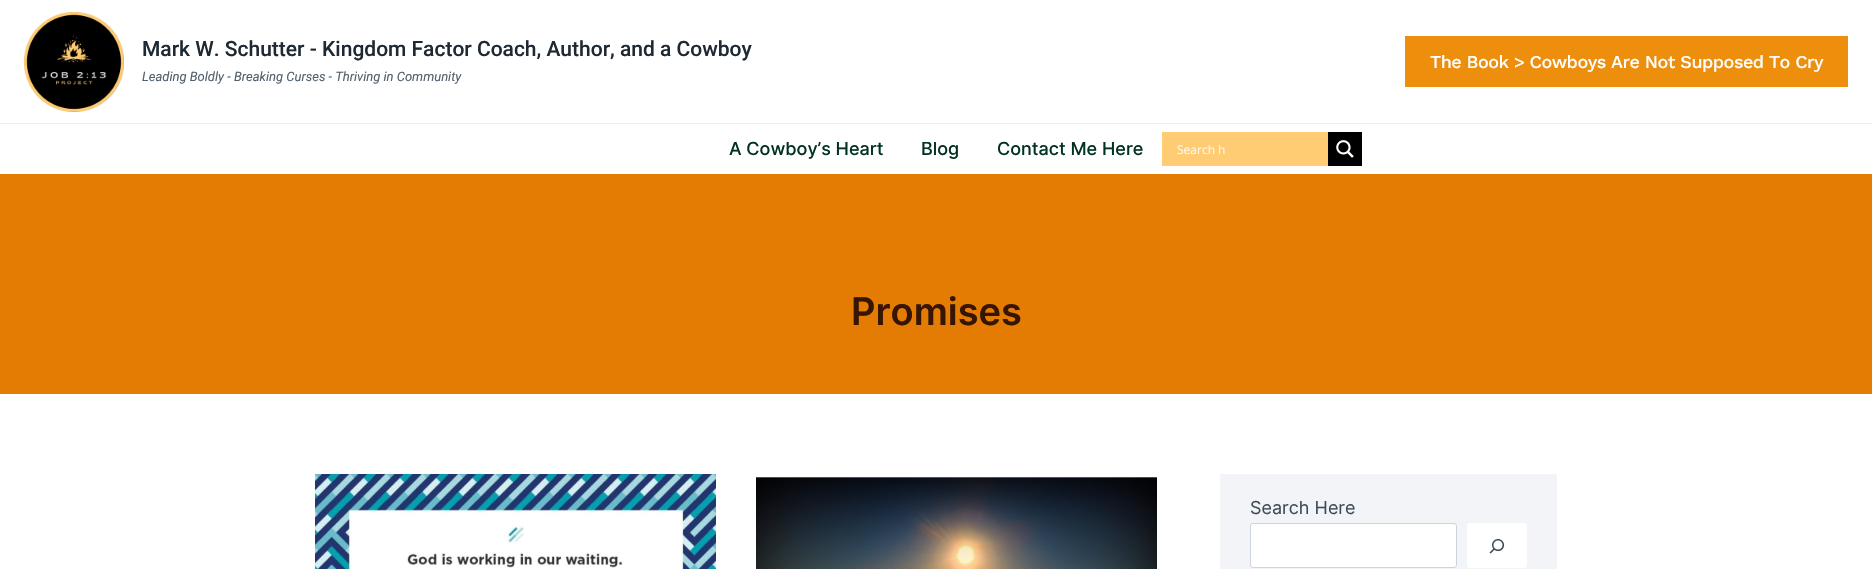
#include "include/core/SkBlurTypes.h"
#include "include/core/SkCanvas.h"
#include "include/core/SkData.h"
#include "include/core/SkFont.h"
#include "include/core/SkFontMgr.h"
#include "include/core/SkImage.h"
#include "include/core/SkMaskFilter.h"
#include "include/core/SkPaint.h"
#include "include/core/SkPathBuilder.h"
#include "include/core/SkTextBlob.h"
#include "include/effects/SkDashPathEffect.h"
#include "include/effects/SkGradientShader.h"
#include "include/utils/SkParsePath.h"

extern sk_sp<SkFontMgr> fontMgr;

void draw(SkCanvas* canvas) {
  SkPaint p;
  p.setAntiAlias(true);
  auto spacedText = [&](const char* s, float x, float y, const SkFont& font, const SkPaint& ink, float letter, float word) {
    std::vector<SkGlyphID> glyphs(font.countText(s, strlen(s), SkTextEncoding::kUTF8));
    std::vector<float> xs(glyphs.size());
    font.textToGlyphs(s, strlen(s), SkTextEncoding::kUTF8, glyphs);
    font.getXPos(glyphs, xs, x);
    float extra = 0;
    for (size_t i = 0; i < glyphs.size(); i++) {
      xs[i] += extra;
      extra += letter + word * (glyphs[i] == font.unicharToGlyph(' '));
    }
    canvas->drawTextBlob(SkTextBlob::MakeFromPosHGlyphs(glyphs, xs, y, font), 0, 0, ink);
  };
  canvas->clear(SK_ColorWHITE);
  p.setColor(SkColorSetRGB(238, 238, 238));
  canvas->drawRect(SkRect::MakeLTRB(0, 123, 1872, 124), p);
  canvas->drawImageRect(SkImages::DeferredFromEncodedData(SkData::MakeFromFileName("images/1.png")), SkRect::MakeLTRB(24, 12, 124, 112), SkSamplingOptions());
  p.setColor(SkColorSetRGB(237, 143, 12));
  canvas->drawRect(SkRect::MakeLTRB(1405, 36, 1848, 87), p);
  p.setColor(SkColorSetRGB(255, 203, 115));
  canvas->drawRect(SkRect::MakeLTRB(1162, 132, 1328, 166), p);
  p.setColor(SK_ColorBLACK);
  canvas->drawRect(SkRect::MakeLTRB(1328, 132, 1362, 166), p);
  canvas->drawImageRect(SkImages::DeferredFromEncodedData(SkData::MakeFromFileName("images/2.png")), SkRect::MakeLTRB(1336, 140, 1354, 158), SkSamplingOptions());
  p.setColor(SkColorSetRGB(228, 123, 2));
  canvas->drawRect(SkRect::MakeLTRB(0, 174, 1872, 394), p);
  canvas->drawImageRect(SkImages::DeferredFromEncodedData(SkData::MakeFromFileName("images/3.png")), SkRect::MakeLTRB(315, 474, 716, 569), SkSamplingOptions());
  canvas->drawImageRect(SkImages::DeferredFromEncodedData(SkData::MakeFromFileName("images/4.png")), SkRect::MakeLTRB(756, 477, 1157, 569), SkSamplingOptions());
  p.setColor(SkColorSetRGB(243, 244, 247));
  canvas->drawRect(SkRect::MakeLTRB(1220, 474, 1557, 569), p);
  p.setColor(SK_ColorWHITE);
  canvas->drawRoundRect(SkRect::MakeLTRB(1250.5f, 523.5f, 1456.5f, 567.5f), 2.5f, 2.5f, p);
  p.setStyle(SkPaint::kStroke_Style);
  p.setStrokeWidth(1);
  p.setColor(SkColorSetRGB(203, 213, 224));
  canvas->drawRoundRect(SkRect::MakeLTRB(1250.5f, 523.5f, 1456.5f, 567.5f), 2.5f, 2.5f, p);
  p.setStyle(SkPaint::kFill_Style);
  p.setColor(SK_ColorWHITE);
  canvas->drawRoundRect(SkRect::MakeLTRB(1467, 523, 1527, 568), 3, 3, p);
  canvas->drawImageRect(SkImages::DeferredFromEncodedData(SkData::MakeFromFileName("images/5.png")), SkRect::MakeLTRB(1489, 539, 1505, 554), SkSamplingOptions());
  SkFont font1(fontMgr->matchFamilyStyle("Roboto", SkFontStyle(500, SkFontStyle::kNormal_Width, SkFontStyle::kUpright_Slant)), 21);
  font1.setSubpixel(true);
  p.setColor(SkColorSetRGB(31, 41, 51));
  canvas->drawString("Mark W. Schutter - Kingdom Factor Coach, Author, and a Cowboy", 142, 56, font1, p);
  SkFont font2(fontMgr->matchFamilyStyle("Roboto", SkFontStyle::Italic()), 13);
  font2.setSubpixel(true);
  p.setColor(SkColorSetRGB(82, 96, 109));
  canvas->drawString("Leading Boldly - Breaking Curses - Thriving in Community", 142, 81, font2, p);
  SkFont font3(fontMgr->matchFamilyStyle("Work Sans", SkFontStyle(500, SkFontStyle::kNormal_Width, SkFontStyle::kUpright_Slant)), 18);
  font3.setSubpixel(true);
  p.setColor(SK_ColorWHITE);
  spacedText("The Book > Cowboys Are Not Supposed To Cry", 1430, 68, font3, p, -0.5f, 0);
  SkFont font4(fontMgr->matchFamilyStyle("Inter", SkFontStyle(500, SkFontStyle::kNormal_Width, SkFontStyle::kUpright_Slant)), 18);
  font4.setSubpixel(true);
  p.setColor(SkColorSetRGB(1, 50, 34));
  canvas->drawString("A Cowboy’s Heart", 729, 155, font4, p);
  canvas->drawString("Blog", 921, 155, font4, p);
  canvas->drawString("Contact Me Here", 997, 155, font4, p);
  SkFont font5(fontMgr->matchFamilyStyle("Open Sans", SkFontStyle::Normal()), 12);
  font5.setSubpixel(true);
  p.setColor(SkColorSetRGB(255, 247, 234));
  canvas->drawString("Search h", 1177, 154, font5, p);
  SkFont font6(fontMgr->matchFamilyStyle("Inter", SkFontStyle(600, SkFontStyle::kNormal_Width, SkFontStyle::kUpright_Slant)), 38);
  font6.setSubpixel(true);
  p.setColor(SkColorSetRGB(54, 21, 2));
  canvas->drawString("Promises", 851, 325, font6, p);
  SkFont font7(fontMgr->matchFamilyStyle("Inter", SkFontStyle::Normal()), 18);
  font7.setSubpixel(true);
  p.setColor(SkColorSetRGB(62, 76, 89));
  canvas->drawString("Search Here", 1250, 514, font7, p);
}
